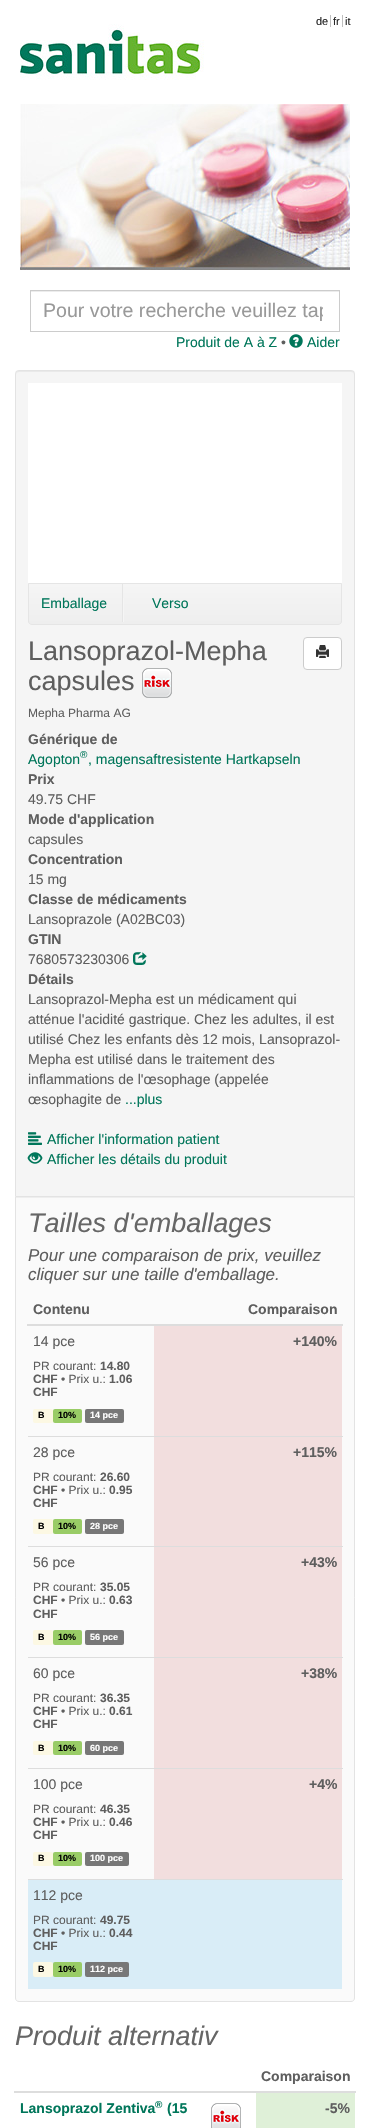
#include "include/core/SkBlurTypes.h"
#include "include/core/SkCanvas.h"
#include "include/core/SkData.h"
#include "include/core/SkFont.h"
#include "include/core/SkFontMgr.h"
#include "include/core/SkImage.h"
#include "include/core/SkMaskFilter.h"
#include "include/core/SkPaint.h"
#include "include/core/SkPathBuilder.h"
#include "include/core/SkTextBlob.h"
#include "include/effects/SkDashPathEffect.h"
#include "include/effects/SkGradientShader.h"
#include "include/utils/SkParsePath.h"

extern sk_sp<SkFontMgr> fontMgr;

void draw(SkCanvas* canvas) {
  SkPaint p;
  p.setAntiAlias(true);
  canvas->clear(SK_ColorWHITE);
  canvas->drawImageRect(SkImages::DeferredFromEncodedData(SkData::MakeFromFileName("images/1.png")), SkRect::MakeLTRB(20, 24, 350, 270), SkSamplingOptions());
  p.setColor(SkColorSetRGB(191, 191, 191));
  canvas->drawRect(SkRect::MakeLTRB(330, 15, 331, 27), p);
  canvas->drawRect(SkRect::MakeLTRB(342, 15, 343, 27), p);
  p.setColor(SkColorSetRGB(236, 236, 236));
  canvas->drawRect(SkRect::MakeLTRB(31, 291, 339, 292), p);
  p.setStyle(SkPaint::kStroke_Style);
  p.setStrokeWidth(1);
  p.setColor(SkColorSetRGB(204, 204, 204));
  canvas->drawRect(SkRect::MakeLTRB(30.5f, 290.5f, 339.5f, 331.5f), p);
  canvas->drawImageRect(SkImages::DeferredFromEncodedData(SkData::MakeFromFileName("images/2.png")), SkRect::MakeLTRB(289, 334, 303, 348), SkSamplingOptions());
  p.setStyle(SkPaint::kFill_Style);
  p.setColor(SkColorSetRGB(245, 245, 245));
  canvas->drawRoundRect(SkRect::MakeLTRB(15, 370, 355, 1200), 4, 4, p);
  p.setColor(SkColorSetRGB(233, 233, 233));
  canvas->drawPath(SkPathBuilder().moveTo(19, 372).lineTo(351, 372).cubicTo(353, 372, 354, 373, 354, 375).cubicTo(354, 373, 353, 371, 351, 371).lineTo(19, 371).cubicTo(17, 371, 16, 373, 16, 375).cubicTo(16, 373, 17, 372, 19, 372).close().detach(), p);
  p.setStyle(SkPaint::kStroke_Style);
  p.setColor(SkColorSetRGB(227, 227, 227));
  canvas->drawRoundRect(SkRect::MakeLTRB(15.5f, 370.5f, 354.5f, 1199.5f), 3.5f, 3.5f, p);
  p.setStyle(SkPaint::kFill_Style);
  p.setColor(SK_ColorWHITE);
  canvas->drawRect(SkRect::MakeLTRB(28, 383, 342, 583), p);
  canvas->save();
  canvas->clipPath(SkPathBuilder().moveTo(28, 583).lineTo(342, 583).lineTo(342, 621).cubicTo(342, 623, 340, 625, 338, 625).lineTo(32, 625).cubicTo(30, 625, 28, 623, 28, 621).close().detach(), true);
  {
    const SkColor colors[] = {SkColorSetRGB(245, 245, 245), SkColorSetRGB(238, 238, 238)};
    const float stops[] = {0, 1};
    const SkPoint ends[] = {{185, 584}, {185, 624}};
    p.setShader(SkGradientShader::MakeLinear(ends, colors, stops, 2, SkTileMode::kClamp));
    p.setAlpha(255);
  }
  canvas->drawRect(SkRect::MakeLTRB(28, 584, 342, 624), p);
  canvas->restore();
  p.setStyle(SkPaint::kStroke_Style);
  p.setShader(nullptr);
  p.setColor(SkColorSetRGB(229, 229, 229));
  canvas->drawPath(SkPathBuilder().moveTo(28.5f, 583.5f).lineTo(341.5f, 583.5f).lineTo(341.5f, 621).cubicTo(341.5f, 623, 340, 624.5f, 338, 624.5f).lineTo(32, 624.5f).cubicTo(30, 624.5f, 28.5f, 623, 28.5f, 621).close().detach(), p);
  p.setStyle(SkPaint::kFill_Style);
  canvas->drawRect(SkRect::MakeLTRB(122, 584, 123, 622), p);
  p.setColor(SkColorSetRGB(245, 245, 245));
  canvas->drawRect(SkRect::MakeLTRB(123, 598, 124, 622), p);
  canvas->drawImageRect(SkImages::DeferredFromEncodedData(SkData::MakeFromFileName("images/3.png")), SkRect::MakeLTRB(142, 668, 172, 698), SkSamplingOptions());
  p.setColor(SK_ColorWHITE);
  canvas->drawRoundRect(SkRect::MakeLTRB(303.5f, 637.5f, 341.5f, 669.5f), 3.5f, 3.5f, p);
  p.setStyle(SkPaint::kStroke_Style);
  p.setColor(SkColorSetRGB(204, 204, 204));
  canvas->drawRoundRect(SkRect::MakeLTRB(303.5f, 637.5f, 341.5f, 669.5f), 3.5f, 3.5f, p);
  canvas->drawImageRect(SkImages::DeferredFromEncodedData(SkData::MakeFromFileName("images/4.png")), SkRect::MakeLTRB(316, 645, 329, 658), SkSamplingOptions());
  canvas->drawImageRect(SkImages::DeferredFromEncodedData(SkData::MakeFromFileName("images/5.png")), SkRect::MakeLTRB(133, 952, 147, 965), SkSamplingOptions());
  canvas->drawImageRect(SkImages::DeferredFromEncodedData(SkData::MakeFromFileName("images/6.png")), SkRect::MakeLTRB(28, 1132, 42, 1145), SkSamplingOptions());
  canvas->drawImageRect(SkImages::DeferredFromEncodedData(SkData::MakeFromFileName("images/7.png")), SkRect::MakeLTRB(27, 1152, 43, 1164), SkSamplingOptions());
  p.setStyle(SkPaint::kFill_Style);
  p.setColor(SkColorSetRGB(250, 250, 250));
  canvas->drawPath(SkPathBuilder().moveTo(15, 1196).lineTo(355, 1196).lineTo(355, 1998).cubicTo(355, 2000, 353, 2002, 351, 2002).lineTo(19, 2002).cubicTo(17, 2002, 15, 2000, 15, 1998).close().detach(), p);
  p.setColor(SkColorSetRGB(238, 238, 238));
  canvas->drawRect(SkRect::MakeLTRB(16, 1197, 354, 1198), p);
  p.setStyle(SkPaint::kStroke_Style);
  p.setColor(SkColorSetRGB(227, 227, 227));
  canvas->drawPath(SkPathBuilder().moveTo(15.5f, 1196.5f).lineTo(354.5f, 1196.5f).lineTo(354.5f, 1998).cubicTo(354.5f, 2000, 353, 2001.5f, 351, 2001.5f).lineTo(19, 2001.5f).cubicTo(17, 2001.5f, 15.5f, 2000, 15.5f, 1998).close().detach(), p);
  p.setStyle(SkPaint::kFill_Style);
  p.setColor(SkColorSetRGB(221, 221, 221));
  canvas->drawRect(SkRect::MakeLTRB(27, 1324, 343, 1326), p);
  p.setColor(SkColorSetRGB(252, 248, 227));
  canvas->drawRoundRect(SkRect::MakeLTRB(33, 1409, 53, 1423), 2, 2, p);
  p.setColor(SkColorSetRGB(153, 204, 102));
  canvas->drawRoundRect(SkRect::MakeLTRB(53, 1409, 82, 1423), 2, 2, p);
  p.setColor(SkColorSetRGB(119, 119, 119));
  canvas->drawRoundRect(SkRect::MakeLTRB(85, 1409, 124, 1423), 2, 2, p);
  p.setColor(SkColorSetRGB(242, 222, 222));
  canvas->drawRect(SkRect::MakeLTRB(154, 1326, 342, 1436), p);
  p.setColor(SkColorSetRGB(252, 248, 227));
  canvas->drawRoundRect(SkRect::MakeLTRB(33, 1519, 53, 1534), 2, 2, p);
  p.setColor(SkColorSetRGB(153, 204, 102));
  canvas->drawRoundRect(SkRect::MakeLTRB(53, 1519, 82, 1534), 2, 2, p);
  p.setColor(SkColorSetRGB(119, 119, 119));
  canvas->drawRoundRect(SkRect::MakeLTRB(85, 1519, 124, 1534), 2, 2, p);
  p.setColor(SkColorSetRGB(242, 222, 222));
  canvas->drawRect(SkRect::MakeLTRB(154, 1437, 342, 1546), p);
  p.setColor(SkColorSetRGB(221, 221, 221));
  canvas->drawRect(SkRect::MakeLTRB(28, 1436, 343, 1437), p);
  p.setColor(SkColorSetRGB(252, 248, 227));
  canvas->drawRoundRect(SkRect::MakeLTRB(33, 1630, 53, 1645), 2, 2, p);
  p.setColor(SkColorSetRGB(153, 204, 102));
  canvas->drawRoundRect(SkRect::MakeLTRB(53, 1630, 82, 1645), 2, 2, p);
  p.setColor(SkColorSetRGB(119, 119, 119));
  canvas->drawRoundRect(SkRect::MakeLTRB(85, 1630, 124, 1645), 2, 2, p);
  p.setColor(SkColorSetRGB(242, 222, 222));
  canvas->drawRect(SkRect::MakeLTRB(154, 1547, 342, 1657), p);
  p.setColor(SkColorSetRGB(221, 221, 221));
  canvas->drawRect(SkRect::MakeLTRB(28, 1546, 343, 1547), p);
  p.setColor(SkColorSetRGB(252, 248, 227));
  canvas->drawRoundRect(SkRect::MakeLTRB(33, 1741, 53, 1755), 2, 2, p);
  p.setColor(SkColorSetRGB(153, 204, 102));
  canvas->drawRoundRect(SkRect::MakeLTRB(53, 1741, 82, 1755), 2, 2, p);
  p.setColor(SkColorSetRGB(119, 119, 119));
  canvas->drawRoundRect(SkRect::MakeLTRB(85, 1741, 124, 1755), 2, 2, p);
  p.setColor(SkColorSetRGB(242, 222, 222));
  canvas->drawRect(SkRect::MakeLTRB(154, 1658, 342, 1768), p);
  p.setColor(SkColorSetRGB(221, 221, 221));
  canvas->drawRect(SkRect::MakeLTRB(28, 1657, 343, 1658), p);
  p.setColor(SkColorSetRGB(252, 248, 227));
  canvas->drawRoundRect(SkRect::MakeLTRB(33, 1852, 53, 1866), 2, 2, p);
  p.setColor(SkColorSetRGB(153, 204, 102));
  canvas->drawRoundRect(SkRect::MakeLTRB(53, 1852, 82, 1866), 2, 2, p);
  p.setColor(SkColorSetRGB(119, 119, 119));
  canvas->drawRoundRect(SkRect::MakeLTRB(85, 1852, 129, 1866), 2, 2, p);
  p.setColor(SkColorSetRGB(242, 222, 222));
  canvas->drawRect(SkRect::MakeLTRB(154, 1769, 342, 1879), p);
  p.setColor(SkColorSetRGB(221, 221, 221));
  canvas->drawRect(SkRect::MakeLTRB(28, 1768, 343, 1769), p);
  canvas->drawRect(SkRect::MakeLTRB(28, 1879, 343, 1880), p);
  p.setColor(SkColorSetRGB(217, 237, 247));
  canvas->drawRect(SkRect::MakeLTRB(28, 1880, 342, 1989), p);
  p.setColor(SkColorSetRGB(252, 248, 227));
  canvas->drawRoundRect(SkRect::MakeLTRB(33, 1962, 53, 1977), 2, 2, p);
  p.setColor(SkColorSetRGB(153, 204, 102));
  canvas->drawRoundRect(SkRect::MakeLTRB(53, 1962, 82, 1977), 2, 2, p);
  p.setColor(SkColorSetRGB(119, 119, 119));
  canvas->drawRoundRect(SkRect::MakeLTRB(85, 1962, 129, 1977), 2, 2, p);
  p.setColor(SkColorSetRGB(221, 221, 221));
  canvas->drawRect(SkRect::MakeLTRB(14, 2091, 356, 2093), p);
  canvas->drawImageRect(SkImages::DeferredFromEncodedData(SkData::MakeFromFileName("images/8.png")), SkRect::MakeLTRB(211, 2103, 241, 2128), SkSamplingOptions());
  p.setColor(SkColorSetRGB(223, 240, 216));
  canvas->drawRect(SkRect::MakeLTRB(256, 2093, 355, 2128), p);
  SkFont font1(fontMgr->matchFamilyStyle("Liberation Sans", SkFontStyle::Normal()), 11);
  font1.setSubpixel(true);
  p.setColor(SkColorSetRGB(34, 34, 34));
  canvas->drawString("de", 316, 25, font1, p);
  canvas->drawString("fr", 333, 25, font1, p);
  canvas->drawString("it", 345, 25, font1, p);
  canvas->save();
  canvas->clipRect(SkRect::MakeLTRB(43, 299, 323, 322));
  SkFont font2(fontMgr->matchFamilyStyle("Liberation Sans", SkFontStyle::Normal()), 19.6f);
  font2.setSubpixel(true);
  p.setColor(SkColorSetRGB(153, 153, 153));
  canvas->drawString("Pour votre recherche veuillez tap", 43, 317, font2, p);
  canvas->restore();
  SkFont font3(fontMgr->matchFamilyStyle("Liberation Sans", SkFontStyle::Normal()), 14);
  font3.setSubpixel(true);
  p.setColor(SkColorSetRGB(0, 118, 90));
  canvas->drawString("Produit de A à Z", 176, 347, font3, p);
  p.setColor(SkColorSetRGB(94, 94, 94));
  canvas->drawString("•", 281, 347, font3, p);
  p.setColor(SkColorSetRGB(0, 118, 90));
  canvas->drawString("Aider", 307, 347, font3, p);
  canvas->drawString("Emballage", 41, 608, font3, p);
  canvas->drawString("Verso", 152, 608, font3, p);
  SkFont font4(fontMgr->matchFamilyStyle("Liberation Sans", SkFontStyle::Normal()), 27);
  font4.setSubpixel(true);
  p.setColor(SkColorSetRGB(94, 94, 94));
  canvas->drawString("Lansoprazol-Mepha", 28, 660, font4, p);
  canvas->drawString("capsules", 28, 690, font4, p);
  SkFont font5(fontMgr->matchFamilyStyle("Liberation Sans", SkFontStyle::Normal()), 12);
  font5.setSubpixel(true);
  canvas->drawString("Mepha Pharma AG", 28, 717, font5, p);
  SkFont font6(fontMgr->matchFamilyStyle("Liberation Sans", SkFontStyle::Bold()), 14);
  font6.setSubpixel(true);
  canvas->drawString("Générique de", 28, 744, font6, p);
  p.setColor(SkColorSetRGB(0, 118, 90));
  canvas->drawString("Agopton", 28, 764, font3, p);
  SkFont font7(fontMgr->matchFamilyStyle("Liberation Sans", SkFontStyle::Normal()), 10);
  font7.setSubpixel(true);
  canvas->drawString("®", 80, 758, font7, p);
  canvas->drawString(", magensaftresistente Hartkapseln", 88, 764, font3, p);
  p.setColor(SkColorSetRGB(94, 94, 94));
  canvas->drawString("Prix", 28, 784, font6, p);
  canvas->drawString("49.75 CHF", 28, 804, font3, p);
  canvas->drawString("Mode d'application", 28, 824, font6, p);
  canvas->drawString("capsules", 28, 844, font3, p);
  canvas->drawString("Concentration", 28, 864, font6, p);
  canvas->drawString("15 mg", 28, 884, font3, p);
  canvas->drawString("Classe de médicaments", 28, 904, font6, p);
  canvas->drawString("Lansoprazole (A02BC03)", 28, 924, font3, p);
  canvas->drawString("GTIN", 28, 944, font6, p);
  canvas->drawString("7680573230306", 28, 964, font3, p);
  canvas->drawString("Détails", 28, 984, font6, p);
  canvas->drawString("Lansoprazol-Mepha est un médicament qui", 28, 1004, font3, p);
  canvas->drawString("atténue l'acidité gastrique. Chez les adultes, il est", 28, 1024, font3, p);
  canvas->drawString("utilisé Chez les enfants dès 12 mois, Lansoprazol-", 28, 1044, font3, p);
  canvas->drawString("Mepha est utilisé dans le traitement des", 28, 1064, font3, p);
  canvas->drawString("inflammations de l'œsophage (appelée", 28, 1084, font3, p);
  canvas->drawString("œsophagite de", 28, 1104, font3, p);
  p.setColor(SkColorSetRGB(0, 118, 90));
  canvas->drawString("...plus", 125, 1104, font3, p);
  canvas->drawString("Afficher l'information patient", 47, 1144, font3, p);
  canvas->drawString("Afficher les détails du produit", 47, 1164, font3, p);
  SkFont font8(fontMgr->matchFamilyStyle("Liberation Sans", SkFontStyle::Italic()), 27);
  font8.setSubpixel(true);
  p.setColor(SkColorSetRGB(102, 102, 102));
  canvas->drawString("Tailles d'emballages", 28, 1232, font8, p);
  SkFont font9(fontMgr->matchFamilyStyle("Liberation Sans", SkFontStyle::Italic()), 17);
  font9.setSubpixel(true);
  p.setColor(SkColorSetRGB(94, 94, 94));
  canvas->drawString("Pour une comparaison de prix, veuillez", 28, 1261, font9, p);
  canvas->drawString("cliquer sur une taille d'emballage.", 28, 1280, font9, p);
  canvas->drawString("Contenu", 33, 1314, font6, p);
  canvas->drawString("Comparaison", 248, 1314, font6, p);
  canvas->drawString("14 pce", 33, 1346, font3, p);
  canvas->drawString("PR courant:", 33, 1370, font5, p);
  SkFont font10(fontMgr->matchFamilyStyle("Liberation Sans", SkFontStyle::Bold()), 12);
  font10.setSubpixel(true);
  canvas->drawString("14.80", 100, 1370, font10, p);
  canvas->drawString("CHF", 33, 1383, font10, p);
  canvas->drawString("• Prix u.:", 61, 1383, font5, p);
  canvas->drawString("1.06", 109, 1383, font10, p);
  canvas->drawString("CHF", 33, 1396, font10, p);
  SkFont font11(fontMgr->matchFamilyStyle("Liberation Sans", SkFontStyle::Bold()), 9);
  font11.setSubpixel(true);
  p.setColor(SK_ColorBLACK);
  canvas->drawString("B", 38, 1418, font11, p);
  canvas->drawString("10%", 58, 1418, font11, p);
  p.setColor(SK_ColorWHITE);
  canvas->drawString("14 pce", 90, 1418, font11, p);
  p.setColor(SkColorSetRGB(94, 94, 94));
  canvas->drawString("+140%", 293, 1346, font6, p);
  canvas->drawString("28 pce", 33, 1457, font3, p);
  canvas->drawString("PR courant:", 33, 1481, font5, p);
  canvas->drawString("26.60", 100, 1481, font10, p);
  canvas->drawString("CHF", 33, 1494, font10, p);
  canvas->drawString("• Prix u.:", 61, 1494, font5, p);
  canvas->drawString("0.95", 109, 1494, font10, p);
  canvas->drawString("CHF", 33, 1507, font10, p);
  p.setColor(SK_ColorBLACK);
  canvas->drawString("B", 38, 1529, font11, p);
  canvas->drawString("10%", 58, 1529, font11, p);
  p.setColor(SK_ColorWHITE);
  canvas->drawString("28 pce", 90, 1529, font11, p);
  p.setColor(SkColorSetRGB(94, 94, 94));
  canvas->drawString("+115%", 293, 1457, font6, p);
  canvas->drawString("56 pce", 33, 1567, font3, p);
  canvas->drawString("PR courant:", 33, 1591, font5, p);
  canvas->drawString("35.05", 100, 1591, font10, p);
  canvas->drawString("CHF", 33, 1604, font10, p);
  canvas->drawString("• Prix u.:", 61, 1604, font5, p);
  canvas->drawString("0.63", 109, 1604, font10, p);
  canvas->drawString("CHF", 33, 1618, font10, p);
  p.setColor(SK_ColorBLACK);
  canvas->drawString("B", 38, 1640, font11, p);
  canvas->drawString("10%", 58, 1640, font11, p);
  p.setColor(SK_ColorWHITE);
  canvas->drawString("56 pce", 90, 1640, font11, p);
  p.setColor(SkColorSetRGB(94, 94, 94));
  canvas->drawString("+43%", 301, 1567, font6, p);
  canvas->drawString("60 pce", 33, 1678, font3, p);
  canvas->drawString("PR courant:", 33, 1702, font5, p);
  canvas->drawString("36.35", 100, 1702, font10, p);
  canvas->drawString("CHF", 33, 1715, font10, p);
  canvas->drawString("• Prix u.:", 61, 1715, font5, p);
  canvas->drawString("0.61", 109, 1715, font10, p);
  canvas->drawString("CHF", 33, 1728, font10, p);
  p.setColor(SK_ColorBLACK);
  canvas->drawString("B", 38, 1751, font11, p);
  canvas->drawString("10%", 58, 1751, font11, p);
  p.setColor(SK_ColorWHITE);
  canvas->drawString("60 pce", 90, 1751, font11, p);
  p.setColor(SkColorSetRGB(94, 94, 94));
  canvas->drawString("+38%", 301, 1678, font6, p);
  canvas->drawString("100 pce", 33, 1789, font3, p);
  canvas->drawString("PR courant:", 33, 1813, font5, p);
  canvas->drawString("46.35", 100, 1813, font10, p);
  canvas->drawString("CHF", 33, 1826, font10, p);
  canvas->drawString("• Prix u.:", 61, 1826, font5, p);
  canvas->drawString("0.46", 109, 1826, font10, p);
  canvas->drawString("CHF", 33, 1839, font10, p);
  p.setColor(SK_ColorBLACK);
  canvas->drawString("B", 38, 1861, font11, p);
  canvas->drawString("10%", 58, 1861, font11, p);
  p.setColor(SK_ColorWHITE);
  canvas->drawString("100 pce", 90, 1861, font11, p);
  p.setColor(SkColorSetRGB(94, 94, 94));
  canvas->drawString("+4%", 309, 1789, font6, p);
  canvas->drawString("112 pce", 33, 1900, font3, p);
  canvas->drawString("PR courant:", 33, 1924, font5, p);
  canvas->drawString("49.75", 100, 1924, font10, p);
  canvas->drawString("CHF", 33, 1937, font10, p);
  canvas->drawString("• Prix u.:", 61, 1937, font5, p);
  canvas->drawString("0.44", 109, 1937, font10, p);
  canvas->drawString("CHF", 33, 1950, font10, p);
  p.setColor(SK_ColorBLACK);
  canvas->drawString("B", 38, 1972, font11, p);
  canvas->drawString("10%", 58, 1972, font11, p);
  p.setColor(SK_ColorWHITE);
  canvas->drawString("112 pce", 90, 1972, font11, p);
  p.setColor(SkColorSetRGB(102, 102, 102));
  canvas->drawString("Produit alternativ", 15, 2045, font8, p);
  p.setColor(SkColorSetRGB(94, 94, 94));
  canvas->drawString("Comparaison", 261, 2081, font6, p);
  p.setColor(SkColorSetRGB(0, 118, 90));
  canvas->drawString("Lansoprazol Zentiva", 20, 2113, font6, p);
  SkFont font12(fontMgr->matchFamilyStyle("Liberation Sans", SkFontStyle::Bold()), 10);
  font12.setSubpixel(true);
  canvas->drawString("®", 155, 2108, font12, p);
  canvas->drawString("(15", 167, 2113, font6, p);
  p.setColor(SkColorSetRGB(94, 94, 94));
  canvas->drawString("-5%", 325, 2113, font6, p);
}
